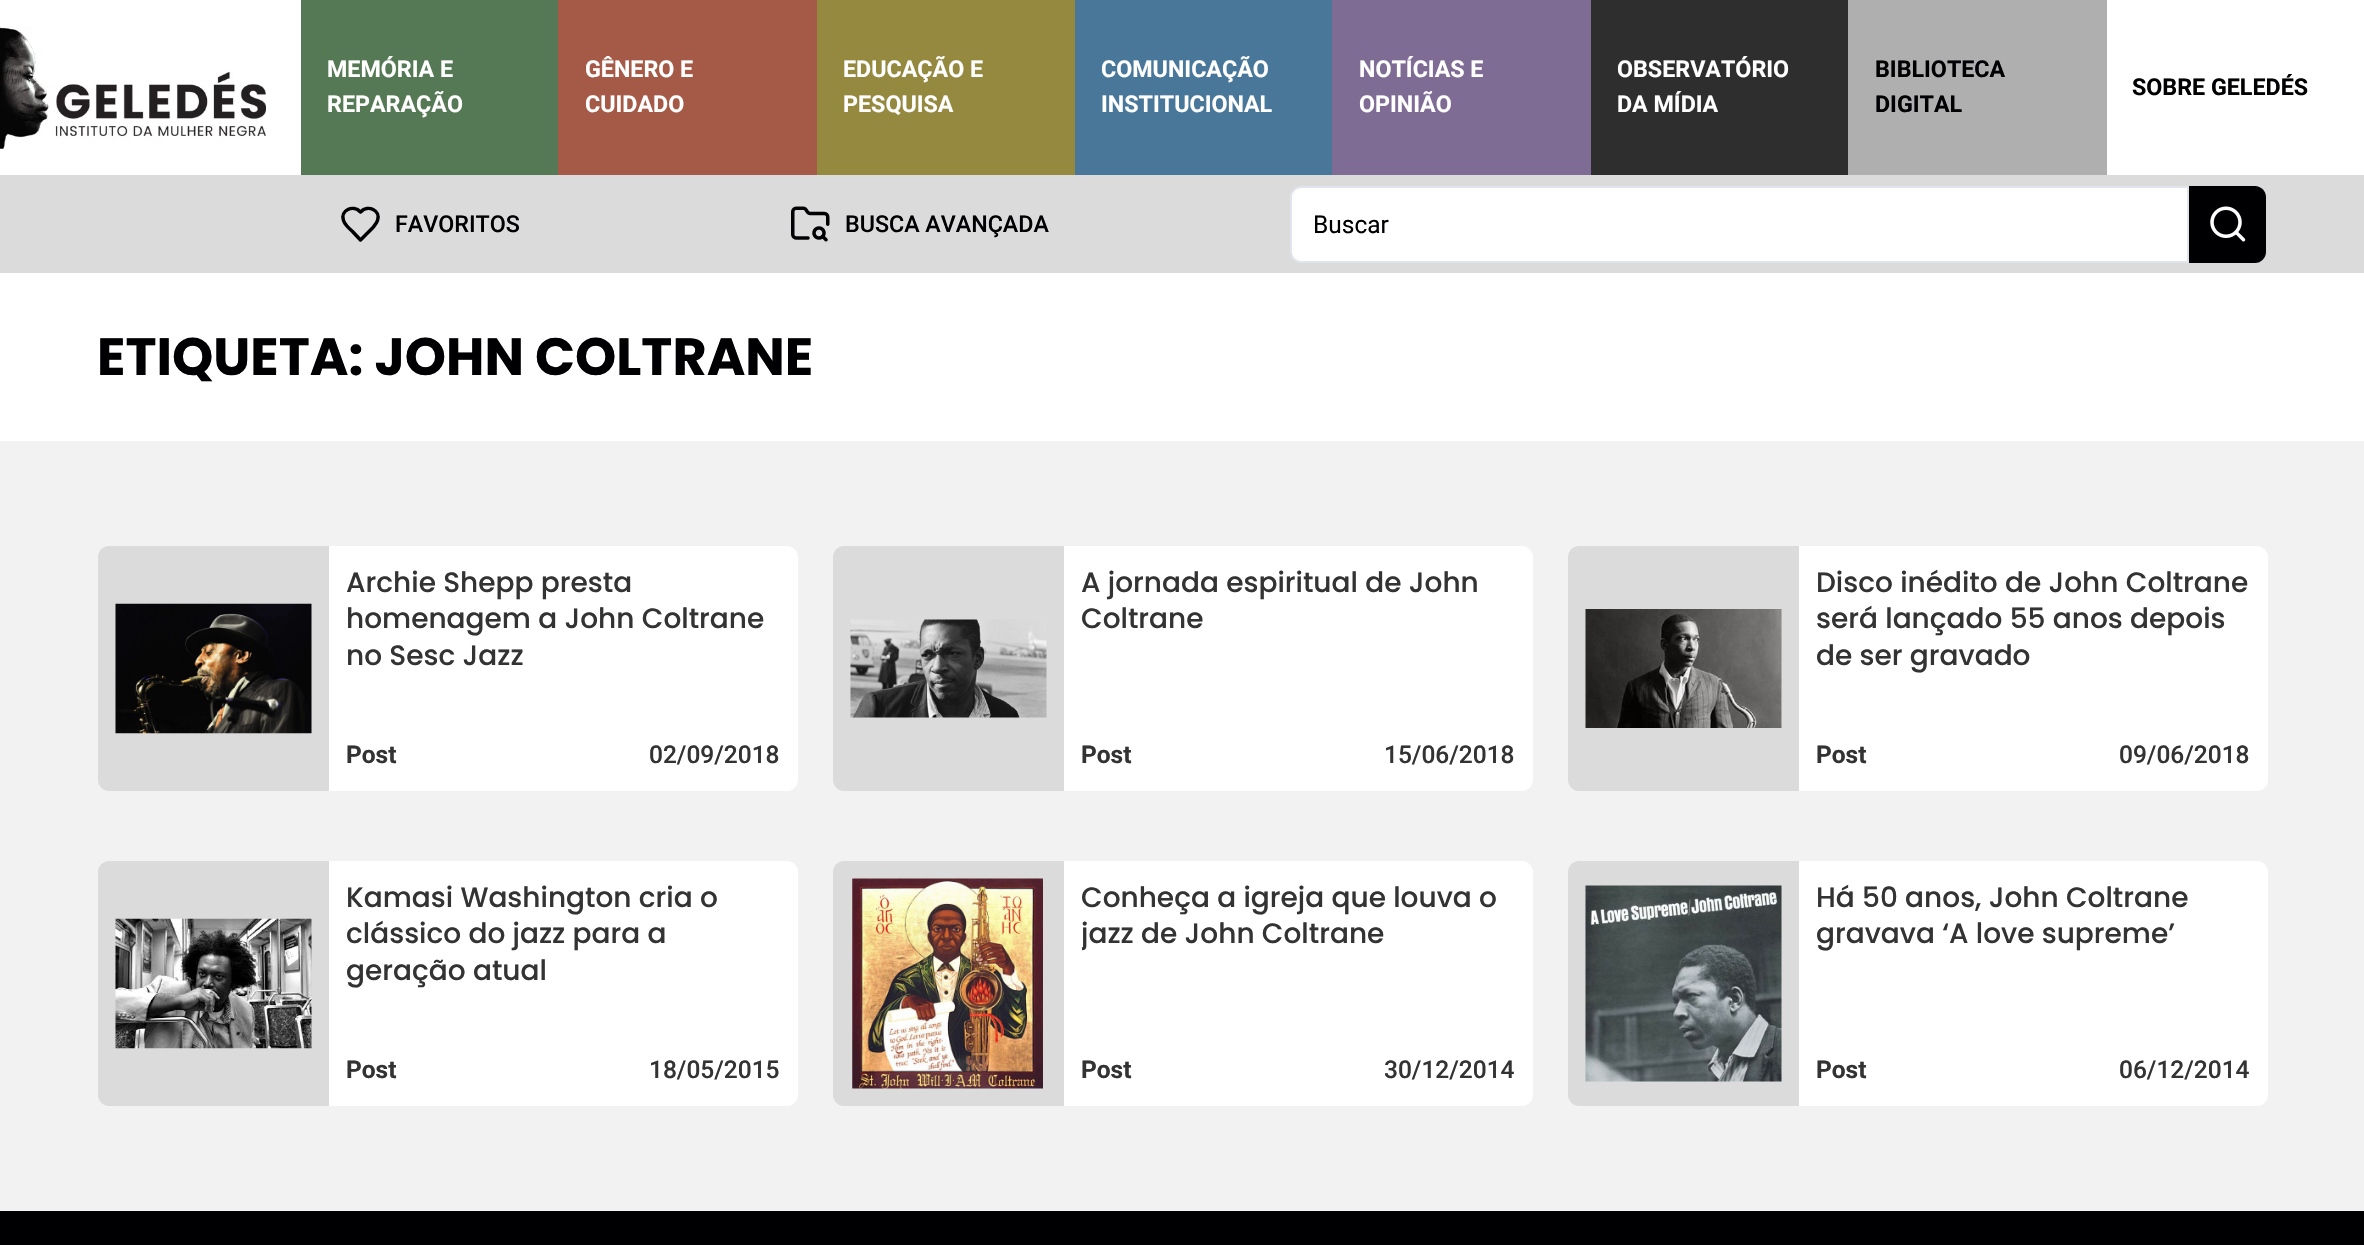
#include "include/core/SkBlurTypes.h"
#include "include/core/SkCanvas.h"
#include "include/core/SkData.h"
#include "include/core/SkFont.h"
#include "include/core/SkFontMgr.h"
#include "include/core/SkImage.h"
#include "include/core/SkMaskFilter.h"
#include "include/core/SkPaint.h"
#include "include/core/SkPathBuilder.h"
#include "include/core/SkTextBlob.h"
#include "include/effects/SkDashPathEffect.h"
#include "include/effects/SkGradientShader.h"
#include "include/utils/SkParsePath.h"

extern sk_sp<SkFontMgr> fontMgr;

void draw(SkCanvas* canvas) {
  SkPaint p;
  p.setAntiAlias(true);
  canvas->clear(SkColorSetRGB(242, 242, 242));
  p.setColor(SK_ColorWHITE);
  canvas->drawRect(SkRect::MakeLTRB(0, 0, 301, 175), p);
  canvas->drawImageRect(SkImages::DeferredFromEncodedData(SkData::MakeFromFileName("images/1.png")), SkRect::MakeLTRB(0, 27, 266, 149), SkSamplingOptions());
  p.setColor(SkColorSetRGB(175, 175, 175));
  canvas->drawRect(SkRect::MakeLTRB(1848, 0, 2107, 175), p);
  p.setColor(SkColorSetRGB(86, 121, 85));
  canvas->drawRect(SkRect::MakeLTRB(301, 0, 558, 175), p);
  p.setColor(SkColorSetRGB(165, 90, 71));
  canvas->drawRect(SkRect::MakeLTRB(558, 0, 817, 175), p);
  p.setColor(SkColorSetRGB(149, 136, 63));
  canvas->drawRect(SkRect::MakeLTRB(817, 0, 1075, 175), p);
  p.setColor(SkColorSetRGB(72, 119, 154));
  canvas->drawRect(SkRect::MakeLTRB(1075, 0, 1332, 175), p);
  p.setColor(SkColorSetRGB(127, 108, 149));
  canvas->drawRect(SkRect::MakeLTRB(1332, 0, 1591, 175), p);
  p.setColor(SkColorSetRGB(46, 46, 46));
  canvas->drawRect(SkRect::MakeLTRB(1591, 0, 1848, 175), p);
  p.setColor(SK_ColorWHITE);
  canvas->drawRect(SkRect::MakeLTRB(2107, 0, 2364, 175), p);
  p.setColor(SkColorSetRGB(219, 219, 219));
  canvas->drawRect(SkRect::MakeLTRB(0, 175, 2364, 273), p);
  p.setStyle(SkPaint::kStroke_Style);
  p.setStrokeWidth(3.5f);
  p.setStrokeCap(SkPaint::kRound_Cap);
  p.setStrokeJoin(SkPaint::kRound_Join);
  p.setColor(SkColorSetRGB(0, 0, 3));
  canvas->drawPath(SkPathBuilder().moveTo(373, 227.5f).cubicTo(374.5f, 225.5f, 376.5f, 223.5f, 377.5f, 220.5f).cubicTo(381, 210.5f, 368, 204, 360.5f, 212).cubicTo(353, 204, 340, 210.5f, 343.5f, 220.5f).cubicTo(345, 225, 349, 228.5f, 352.5f, 231.5f).lineTo(360.5f, 240).close().detach(), p);
  canvas->drawImageRect(SkImages::DeferredFromEncodedData(SkData::MakeFromFileName("images/2.png")), SkRect::MakeLTRB(791, 206, 830, 242), SkSamplingOptions());
  p.setStyle(SkPaint::kFill_Style);
  p.setColor(SK_ColorWHITE);
  canvas->drawPath(SkPathBuilder().moveTo(1301, 187).lineTo(2188, 187).lineTo(2188, 262).lineTo(1301, 262).cubicTo(1295.5f, 262, 1291, 257.5f, 1291, 252).lineTo(1291, 197).cubicTo(1291, 191.5f, 1295.5f, 187, 1301, 187).close().detach(), p);
  p.setStyle(SkPaint::kStroke_Style);
  p.setStrokeWidth(2);
  p.setStrokeCap(SkPaint::kButt_Cap);
  p.setStrokeJoin(SkPaint::kMiter_Join);
  p.setColor(SkColorSetRGB(225, 229, 235));
  canvas->drawPath(SkPathBuilder().moveTo(1301, 187).lineTo(2188, 187).lineTo(2188, 262).lineTo(1301, 262).cubicTo(1295.5f, 262, 1291, 257.5f, 1291, 252).lineTo(1291, 197).cubicTo(1291, 191.5f, 1295.5f, 187, 1301, 187).close().detach(), p);
  p.setStyle(SkPaint::kFill_Style);
  p.setColor(SkColorSetRGB(0, 0, 3));
  canvas->drawPath(SkPathBuilder().moveTo(2189, 186).lineTo(2255, 186).cubicTo(2261, 186, 2266, 191, 2266, 197).lineTo(2266, 252).cubicTo(2266, 258, 2261, 263, 2255, 263).lineTo(2189, 263).close().detach(), p);
  canvas->drawImageRect(SkImages::DeferredFromEncodedData(SkData::MakeFromFileName("images/3.png")), SkRect::MakeLTRB(2210, 206, 2246, 242), SkSamplingOptions());
  p.setColor(SK_ColorWHITE);
  canvas->drawRect(SkRect::MakeLTRB(0, 273, 2364, 441), p);
  p.setColor(SkColorSetRGB(219, 219, 219));
  canvas->drawPath(SkPathBuilder().moveTo(109, 546).lineTo(329, 546).lineTo(329, 791).lineTo(109, 791).cubicTo(103, 791, 98, 786, 98, 780).lineTo(98, 557).cubicTo(98, 551, 103, 546, 109, 546).close().detach(), p);
  canvas->drawImageRect(SkImages::DeferredFromEncodedData(SkData::MakeFromFileName("images/4.png")), SkRect::MakeLTRB(115, 603, 312, 734), SkSamplingOptions());
  p.setColor(SK_ColorWHITE);
  canvas->drawPath(SkPathBuilder().moveTo(329, 546).lineTo(787, 546).cubicTo(793, 546, 798, 551, 798, 557).lineTo(798, 780).cubicTo(798, 786, 793, 791, 787, 791).lineTo(329, 791).close().detach(), p);
  p.setColor(SkColorSetRGB(219, 219, 219));
  canvas->drawPath(SkPathBuilder().moveTo(844, 546).lineTo(1064, 546).lineTo(1064, 791).lineTo(844, 791).cubicTo(838, 791, 833, 786, 833, 780).lineTo(833, 557).cubicTo(833, 551, 838, 546, 844, 546).close().detach(), p);
  canvas->drawImageRect(SkImages::DeferredFromEncodedData(SkData::MakeFromFileName("images/5.png")), SkRect::MakeLTRB(850, 619, 1047, 718), SkSamplingOptions());
  p.setColor(SK_ColorWHITE);
  canvas->drawPath(SkPathBuilder().moveTo(1064, 546).lineTo(1522, 546).cubicTo(1528, 546, 1533, 551, 1533, 557).lineTo(1533, 780).cubicTo(1533, 786, 1528, 791, 1522, 791).lineTo(1064, 791).close().detach(), p);
  p.setColor(SkColorSetRGB(219, 219, 219));
  canvas->drawPath(SkPathBuilder().moveTo(1579, 546).lineTo(1799, 546).lineTo(1799, 791).lineTo(1579, 791).cubicTo(1573, 791, 1568, 786, 1568, 780).lineTo(1568, 557).cubicTo(1568, 551, 1573, 546, 1579, 546).close().detach(), p);
  canvas->drawImageRect(SkImages::DeferredFromEncodedData(SkData::MakeFromFileName("images/6.png")), SkRect::MakeLTRB(1585, 609, 1782, 728), SkSamplingOptions());
  p.setColor(SK_ColorWHITE);
  canvas->drawPath(SkPathBuilder().moveTo(1799, 546).lineTo(2257, 546).cubicTo(2263, 546, 2268, 551, 2268, 557).lineTo(2268, 780).cubicTo(2268, 786, 2263, 791, 2257, 791).lineTo(1799, 791).close().detach(), p);
  p.setColor(SkColorSetRGB(219, 219, 219));
  canvas->drawPath(SkPathBuilder().moveTo(109, 861).lineTo(329, 861).lineTo(329, 1106).lineTo(109, 1106).cubicTo(103, 1106, 98, 1101, 98, 1095).lineTo(98, 872).cubicTo(98, 866, 103, 861, 109, 861).close().detach(), p);
  canvas->drawImageRect(SkImages::DeferredFromEncodedData(SkData::MakeFromFileName("images/7.png")), SkRect::MakeLTRB(115, 918, 312, 1049), SkSamplingOptions());
  p.setColor(SK_ColorWHITE);
  canvas->drawPath(SkPathBuilder().moveTo(329, 861).lineTo(787, 861).cubicTo(793, 861, 798, 866, 798, 872).lineTo(798, 1095).cubicTo(798, 1101, 793, 1106, 787, 1106).lineTo(329, 1106).close().detach(), p);
  p.setColor(SkColorSetRGB(219, 219, 219));
  canvas->drawPath(SkPathBuilder().moveTo(844, 861).lineTo(1064, 861).lineTo(1064, 1106).lineTo(844, 1106).cubicTo(838, 1106, 833, 1101, 833, 1095).lineTo(833, 872).cubicTo(833, 866, 838, 861, 844, 861).close().detach(), p);
  canvas->drawImageRect(SkImages::DeferredFromEncodedData(SkData::MakeFromFileName("images/8.png")), SkRect::MakeLTRB(852, 878, 1043, 1089), SkSamplingOptions());
  p.setColor(SK_ColorWHITE);
  canvas->drawPath(SkPathBuilder().moveTo(1064, 861).lineTo(1522, 861).cubicTo(1528, 861, 1533, 866, 1533, 872).lineTo(1533, 1095).cubicTo(1533, 1101, 1528, 1106, 1522, 1106).lineTo(1064, 1106).close().detach(), p);
  p.setColor(SkColorSetRGB(219, 219, 219));
  canvas->drawPath(SkPathBuilder().moveTo(1579, 861).lineTo(1799, 861).lineTo(1799, 1106).lineTo(1579, 1106).cubicTo(1573, 1106, 1568, 1101, 1568, 1095).lineTo(1568, 872).cubicTo(1568, 866, 1573, 861, 1579, 861).close().detach(), p);
  canvas->drawImageRect(SkImages::DeferredFromEncodedData(SkData::MakeFromFileName("images/9.png")), SkRect::MakeLTRB(1585, 885, 1782, 1082), SkSamplingOptions());
  p.setColor(SK_ColorWHITE);
  canvas->drawPath(SkPathBuilder().moveTo(1799, 861).lineTo(2257, 861).cubicTo(2263, 861, 2268, 866, 2268, 872).lineTo(2268, 1095).cubicTo(2268, 1101, 2263, 1106, 2257, 1106).lineTo(1799, 1106).close().detach(), p);
  p.setColor(SkColorSetRGB(0, 0, 3));
  canvas->drawRect(SkRect::MakeLTRB(0, 1211, 2364, 1245), p);
  SkFont font1(fontMgr->matchFamilyStyle("Roboto", SkFontStyle::Bold()), 23.25f);
  font1.setSubpixel(true);
  p.setColor(SK_ColorWHITE);
  canvas->drawString("MEMÓRIA E", 327, 77, font1, p);
  canvas->drawString("REPARAÇÃO", 327, 112, font1, p);
  canvas->drawString("GÊNERO E", 585, 77, font1, p);
  canvas->drawString("CUIDADO", 585, 112, font1, p);
  canvas->drawString("EDUCAÇÃO E", 843, 77, font1, p);
  canvas->drawString("PESQUISA", 843, 112, font1, p);
  canvas->drawString("COMUNICAÇÃO", 1101, 77, font1, p);
  canvas->drawString("INSTITUCIONAL", 1101, 112, font1, p);
  canvas->drawString("NOTÍCIAS E", 1359, 77, font1, p);
  canvas->drawString("OPINIÃO", 1359, 112, font1, p);
  canvas->drawString("OBSERVATÓRIO", 1617, 77, font1, p);
  canvas->drawString("DA MÍDIA", 1617, 112, font1, p);
  p.setColor(SkColorSetRGB(0, 0, 3));
  canvas->drawString("BIBLIOTECA", 1875, 77, font1, p);
  canvas->drawString("DIGITAL", 1875, 112, font1, p);
  canvas->drawString("SOBRE GELEDÉS", 2132, 95, font1, p);
  SkFont font2(fontMgr->matchFamilyStyle("Roboto", SkFontStyle(500, SkFontStyle::kNormal_Width, SkFontStyle::kUpright_Slant)), 23.25f);
  font2.setSubpixel(true);
  canvas->drawString("FAVORITOS", 395, 232, font2, p);
  canvas->drawString("BUSCA AVANÇADA", 845, 232, font2, p);
  SkFont font3(fontMgr->matchFamilyStyle("Roboto", SkFontStyle::Normal()), 24.5f);
  font3.setSubpixel(true);
  canvas->drawString("Buscar", 1313, 233, font3, p);
  SkFont font4(fontMgr->matchFamilyStyle("Poppins", SkFontStyle::Bold()), 52.5f);
  font4.setSubpixel(true);
  canvas->drawString("ETIQUETA: JOHN COLTRANE", 97, 375, font4, p);
  SkFont font5(fontMgr->matchFamilyStyle("Poppins", SkFontStyle(500, SkFontStyle::kNormal_Width, SkFontStyle::kUpright_Slant)), 28);
  font5.setSubpixel(true);
  p.setColor(SkColorSetRGB(51, 51, 51));
  canvas->drawString("Archie Shepp presta", 346, 592, font5, p);
  canvas->drawString("homenagem a John Coltrane", 346, 628, font5, p);
  canvas->drawString("no Sesc Jazz", 346, 665, font5, p);
  SkFont font6(fontMgr->matchFamilyStyle("Roboto", SkFontStyle::Bold()), 24.5f);
  font6.setSubpixel(true);
  canvas->drawString("Post", 346, 763, font6, p);
  SkFont font7(fontMgr->matchFamilyStyle("Roboto", SkFontStyle(500, SkFontStyle::kNormal_Width, SkFontStyle::kUpright_Slant)), 24.5f);
  font7.setSubpixel(true);
  canvas->drawString("02/09/2018", 649, 763, font7, p);
  canvas->drawString("A jornada espiritual de John", 1081, 592, font5, p);
  canvas->save();
  canvas->clipRect(SkRect::MakeLTRB(1082, 564, 1516, 637));
  canvas->drawString("Coltrane", 1081, 628, font5, p);
  canvas->restore();
  canvas->drawString("Post", 1081, 763, font6, p);
  canvas->drawString("15/06/2018", 1384, 763, font7, p);
  canvas->drawString("Disco inédito de John Coltrane", 1816, 592, font5, p);
  canvas->drawString("será lançado 55 anos depois", 1816, 628, font5, p);
  canvas->save();
  canvas->clipRect(SkRect::MakeLTRB(1817, 564, 2251, 674));
  canvas->drawString("de ser gravado", 1816, 665, font5, p);
  canvas->restore();
  canvas->drawString("Post", 1816, 763, font6, p);
  canvas->drawString("09/06/2018", 2119, 763, font7, p);
  canvas->drawString("Kamasi Washington cria o", 346, 907, font5, p);
  canvas->save();
  canvas->clipRect(SkRect::MakeLTRB(347, 879, 781, 989));
  canvas->drawString("clássico do jazz para a", 346, 943, font5, p);
  canvas->drawString("geração atual", 346, 980, font5, p);
  canvas->restore();
  canvas->drawString("Post", 346, 1078, font6, p);
  canvas->drawString("18/05/2015", 649, 1078, font7, p);
  canvas->save();
  canvas->clipRect(SkRect::MakeLTRB(1082, 879, 1516, 952));
  canvas->drawString("Conheça a igreja que louva o", 1081, 907, font5, p);
  canvas->drawString("jazz de John Coltrane", 1081, 943, font5, p);
  canvas->restore();
  canvas->drawString("Post", 1081, 1078, font6, p);
  canvas->drawString("30/12/2014", 1384, 1078, font7, p);
  canvas->drawString("Há 50 anos, John Coltrane", 1816, 907, font5, p);
  canvas->save();
  canvas->clipRect(SkRect::MakeLTRB(1817, 879, 2251, 952));
  canvas->drawString("gravava ‘A love supreme’", 1816, 943, font5, p);
  canvas->restore();
  canvas->drawString("Post", 1816, 1078, font6, p);
  canvas->drawString("06/12/2014", 2119, 1078, font7, p);
}
